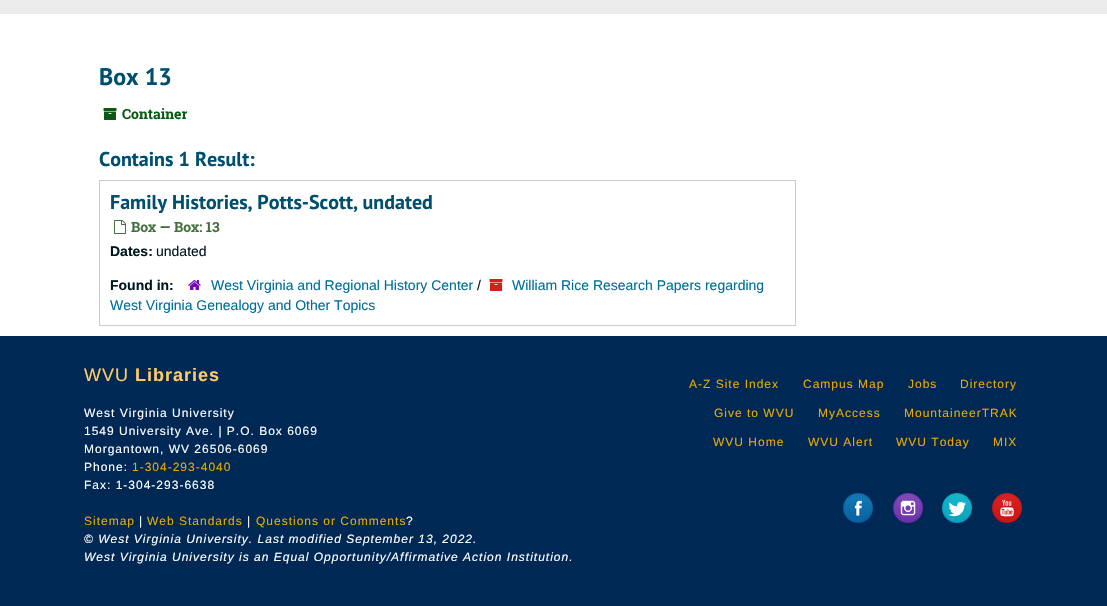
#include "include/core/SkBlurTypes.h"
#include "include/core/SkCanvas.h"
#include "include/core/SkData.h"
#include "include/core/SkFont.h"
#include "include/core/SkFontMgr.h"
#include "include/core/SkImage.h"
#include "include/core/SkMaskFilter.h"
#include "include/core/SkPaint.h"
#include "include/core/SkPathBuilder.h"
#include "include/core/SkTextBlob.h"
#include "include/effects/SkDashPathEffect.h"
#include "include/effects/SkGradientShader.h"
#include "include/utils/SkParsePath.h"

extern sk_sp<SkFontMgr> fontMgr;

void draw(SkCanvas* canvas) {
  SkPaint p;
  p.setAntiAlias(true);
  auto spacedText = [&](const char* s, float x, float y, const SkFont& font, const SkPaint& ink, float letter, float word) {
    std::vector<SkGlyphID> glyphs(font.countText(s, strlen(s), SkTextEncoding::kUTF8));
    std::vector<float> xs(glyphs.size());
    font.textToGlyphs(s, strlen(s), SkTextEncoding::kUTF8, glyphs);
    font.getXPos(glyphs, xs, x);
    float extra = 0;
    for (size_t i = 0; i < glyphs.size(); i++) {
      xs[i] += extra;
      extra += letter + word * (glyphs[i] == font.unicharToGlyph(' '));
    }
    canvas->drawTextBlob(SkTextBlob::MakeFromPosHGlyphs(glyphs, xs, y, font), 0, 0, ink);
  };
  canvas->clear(SK_ColorWHITE);
  p.setColor(SkColorSetRGB(237, 236, 236));
  canvas->drawRect(SkRect::MakeLTRB(0, 0, 1107, 14), p);
  canvas->drawImageRect(SkImages::DeferredFromEncodedData(SkData::MakeFromFileName("images/1.png")), SkRect::MakeLTRB(103, 108, 117, 120), SkSamplingOptions());
  p.setStyle(SkPaint::kStroke_Style);
  p.setStrokeWidth(1);
  p.setColor(SkColorSetRGB(204, 204, 204));
  canvas->drawRect(SkRect::MakeLTRB(99.5f, 180.5f, 795.5f, 325.5f), p);
  canvas->drawImageRect(SkImages::DeferredFromEncodedData(SkData::MakeFromFileName("images/2.png")), SkRect::MakeLTRB(114, 220, 126, 234), SkSamplingOptions());
  canvas->drawImageRect(SkImages::DeferredFromEncodedData(SkData::MakeFromFileName("images/3.png")), SkRect::MakeLTRB(489, 279, 503, 291), SkSamplingOptions());
  canvas->drawImageRect(SkImages::DeferredFromEncodedData(SkData::MakeFromFileName("images/4.png")), SkRect::MakeLTRB(188, 280, 201, 290), SkSamplingOptions());
  p.setStyle(SkPaint::kFill_Style);
  p.setColor(SkColorSetRGB(0, 40, 85));
  canvas->drawRect(SkRect::MakeLTRB(0, 336, 1107, 606), p);
  canvas->drawImageRect(SkImages::DeferredFromEncodedData(SkData::MakeFromFileName("images/5.png")), SkRect::MakeLTRB(843, 493, 873, 523), SkSamplingOptions());
  canvas->drawImageRect(SkImages::DeferredFromEncodedData(SkData::MakeFromFileName("images/6.png")), SkRect::MakeLTRB(893, 493, 923, 523), SkSamplingOptions());
  canvas->drawImageRect(SkImages::DeferredFromEncodedData(SkData::MakeFromFileName("images/7.png")), SkRect::MakeLTRB(942, 493, 972, 523), SkSamplingOptions());
  canvas->drawImageRect(SkImages::DeferredFromEncodedData(SkData::MakeFromFileName("images/8.png")), SkRect::MakeLTRB(992, 493, 1022, 523), SkSamplingOptions());
  SkFont font1(fontMgr->matchFamilyStyle("PT Sans", SkFontStyle::Bold()), 24);
  font1.setSubpixel(true);
  p.setColor(SkColorSetRGB(0, 79, 111));
  canvas->drawString("Box 13", 99, 85, font1, p);
  SkFont font2(fontMgr->matchFamilyStyle("Roboto Slab", SkFontStyle::Bold()), 14);
  font2.setSubpixel(true);
  p.setColor(SkColorSetRGB(11, 90, 20));
  canvas->drawString("Container", 122, 119, font2, p);
  SkFont font3(fontMgr->matchFamilyStyle("PT Sans", SkFontStyle::Bold()), 20);
  font3.setSubpixel(true);
  p.setColor(SkColorSetRGB(0, 79, 111));
  canvas->drawString("Contains 1 Result:", 99, 166, font3, p);
  canvas->drawString("Family Histories, Potts-Scott, undated", 110, 209, font3, p);
  p.setColor(SkColorSetRGB(69, 113, 65));
  canvas->drawString("Box — Box: 13", 131, 232, font2, p);
  SkFont font4(fontMgr->matchFamilyStyle("Liberation Sans", SkFontStyle::Bold()), 14);
  font4.setSubpixel(true);
  p.setColor(SkColorSetRGB(0, 23, 31));
  canvas->drawString("Dates:", 110, 256, font4, p);
  SkFont font5(fontMgr->matchFamilyStyle("Liberation Sans", SkFontStyle::Normal()), 14);
  font5.setSubpixel(true);
  canvas->drawString("undated", 156, 256, font5, p);
  p.setColor(SkColorSetRGB(0, 110, 153));
  canvas->drawString("William Rice Research Papers regarding", 512, 290, font5, p);
  canvas->drawString("West Virginia Genealogy and Other Topics", 110, 310, font5, p);
  p.setColor(SkColorSetRGB(0, 23, 31));
  canvas->drawString("Found in:", 110, 290, font4, p);
  p.setColor(SkColorSetRGB(0, 110, 153));
  canvas->drawString("West Virginia and Regional History Center", 211, 290, font5, p);
  p.setColor(SkColorSetRGB(0, 23, 31));
  canvas->drawString("/", 477, 290, font5, p);
  SkFont font6(fontMgr->matchFamilyStyle("Liberation Sans", SkFontStyle::Normal()), 18);
  font6.setSubpixel(true);
  p.setColor(SkColorSetRGB(255, 204, 102));
  spacedText("WVU", 84, 381, font6, p, 1, 0);
  SkFont font7(fontMgr->matchFamilyStyle("Liberation Sans", SkFontStyle::Bold()), 18);
  font7.setSubpixel(true);
  spacedText("Libraries", 135, 381, font7, p, 1, 0);
  SkFont font8(fontMgr->matchFamilyStyle("Liberation Sans", SkFontStyle::Normal()), 12);
  font8.setSubpixel(true);
  p.setColor(SK_ColorWHITE);
  spacedText("West Virginia University", 84, 417, font8, p, 1, 0);
  spacedText("1549 University Ave. | P.O. Box 6069", 84, 435, font8, p, 1, 0);
  spacedText("Morgantown, WV 26506-6069", 84, 453, font8, p, 1, 0);
  spacedText("Phone:", 84, 471, font8, p, 1, 0);
  p.setColor(SkColorSetRGB(234, 170, 0));
  spacedText("1-304-293-4040", 132, 471, font8, p, 1, 0);
  p.setColor(SK_ColorWHITE);
  spacedText("Fax: 1-304-293-6638", 84, 489, font8, p, 1, 0);
  p.setColor(SkColorSetRGB(234, 170, 0));
  spacedText("Sitemap", 84, 525, font8, p, 1, 0);
  p.setColor(SK_ColorWHITE);
  spacedText("|", 139, 525, font8, p, 1, 0);
  p.setColor(SkColorSetRGB(234, 170, 0));
  spacedText("Web Standards", 147, 525, font8, p, 1, 0);
  p.setColor(SK_ColorWHITE);
  spacedText("|", 247, 525, font8, p, 1, 0);
  p.setColor(SkColorSetRGB(234, 170, 0));
  spacedText("Questions or Comments", 256, 525, font8, p, 1, 0);
  p.setColor(SK_ColorWHITE);
  spacedText("?", 406, 525, font8, p, 1, 0);
  SkFont font9(fontMgr->matchFamilyStyle("Liberation Sans", SkFontStyle::Italic()), 12);
  font9.setSubpixel(true);
  spacedText("© West Virginia University. Last modified September 13, 2022.", 84, 543, font9, p, 1, 0);
  spacedText("West Virginia University is an Equal Opportunity/Affirmative Action Institution.", 84, 561, font9, p, 1, 0);
  p.setColor(SkColorSetRGB(234, 170, 0));
  spacedText("A-Z Site Index", 689, 388, font8, p, 1, 0);
  spacedText("Campus Map", 803, 388, font8, p, 1, 0);
  spacedText("Jobs", 908, 388, font8, p, 1, 0);
  spacedText("Directory", 960, 388, font8, p, 1, 0);
  spacedText("Give to WVU", 714, 417, font8, p, 1, 0);
  spacedText("MyAccess", 818, 417, font8, p, 1, 0);
  spacedText("MountaineerTRAK", 904, 417, font8, p, 1, 0);
  spacedText("WVU Home", 713, 446, font8, p, 1, 0);
  spacedText("WVU Alert", 808, 446, font8, p, 1, 0);
  spacedText("WVU Today", 896, 446, font8, p, 1, 0);
  spacedText("MIX", 993, 446, font8, p, 1, 0);
}
